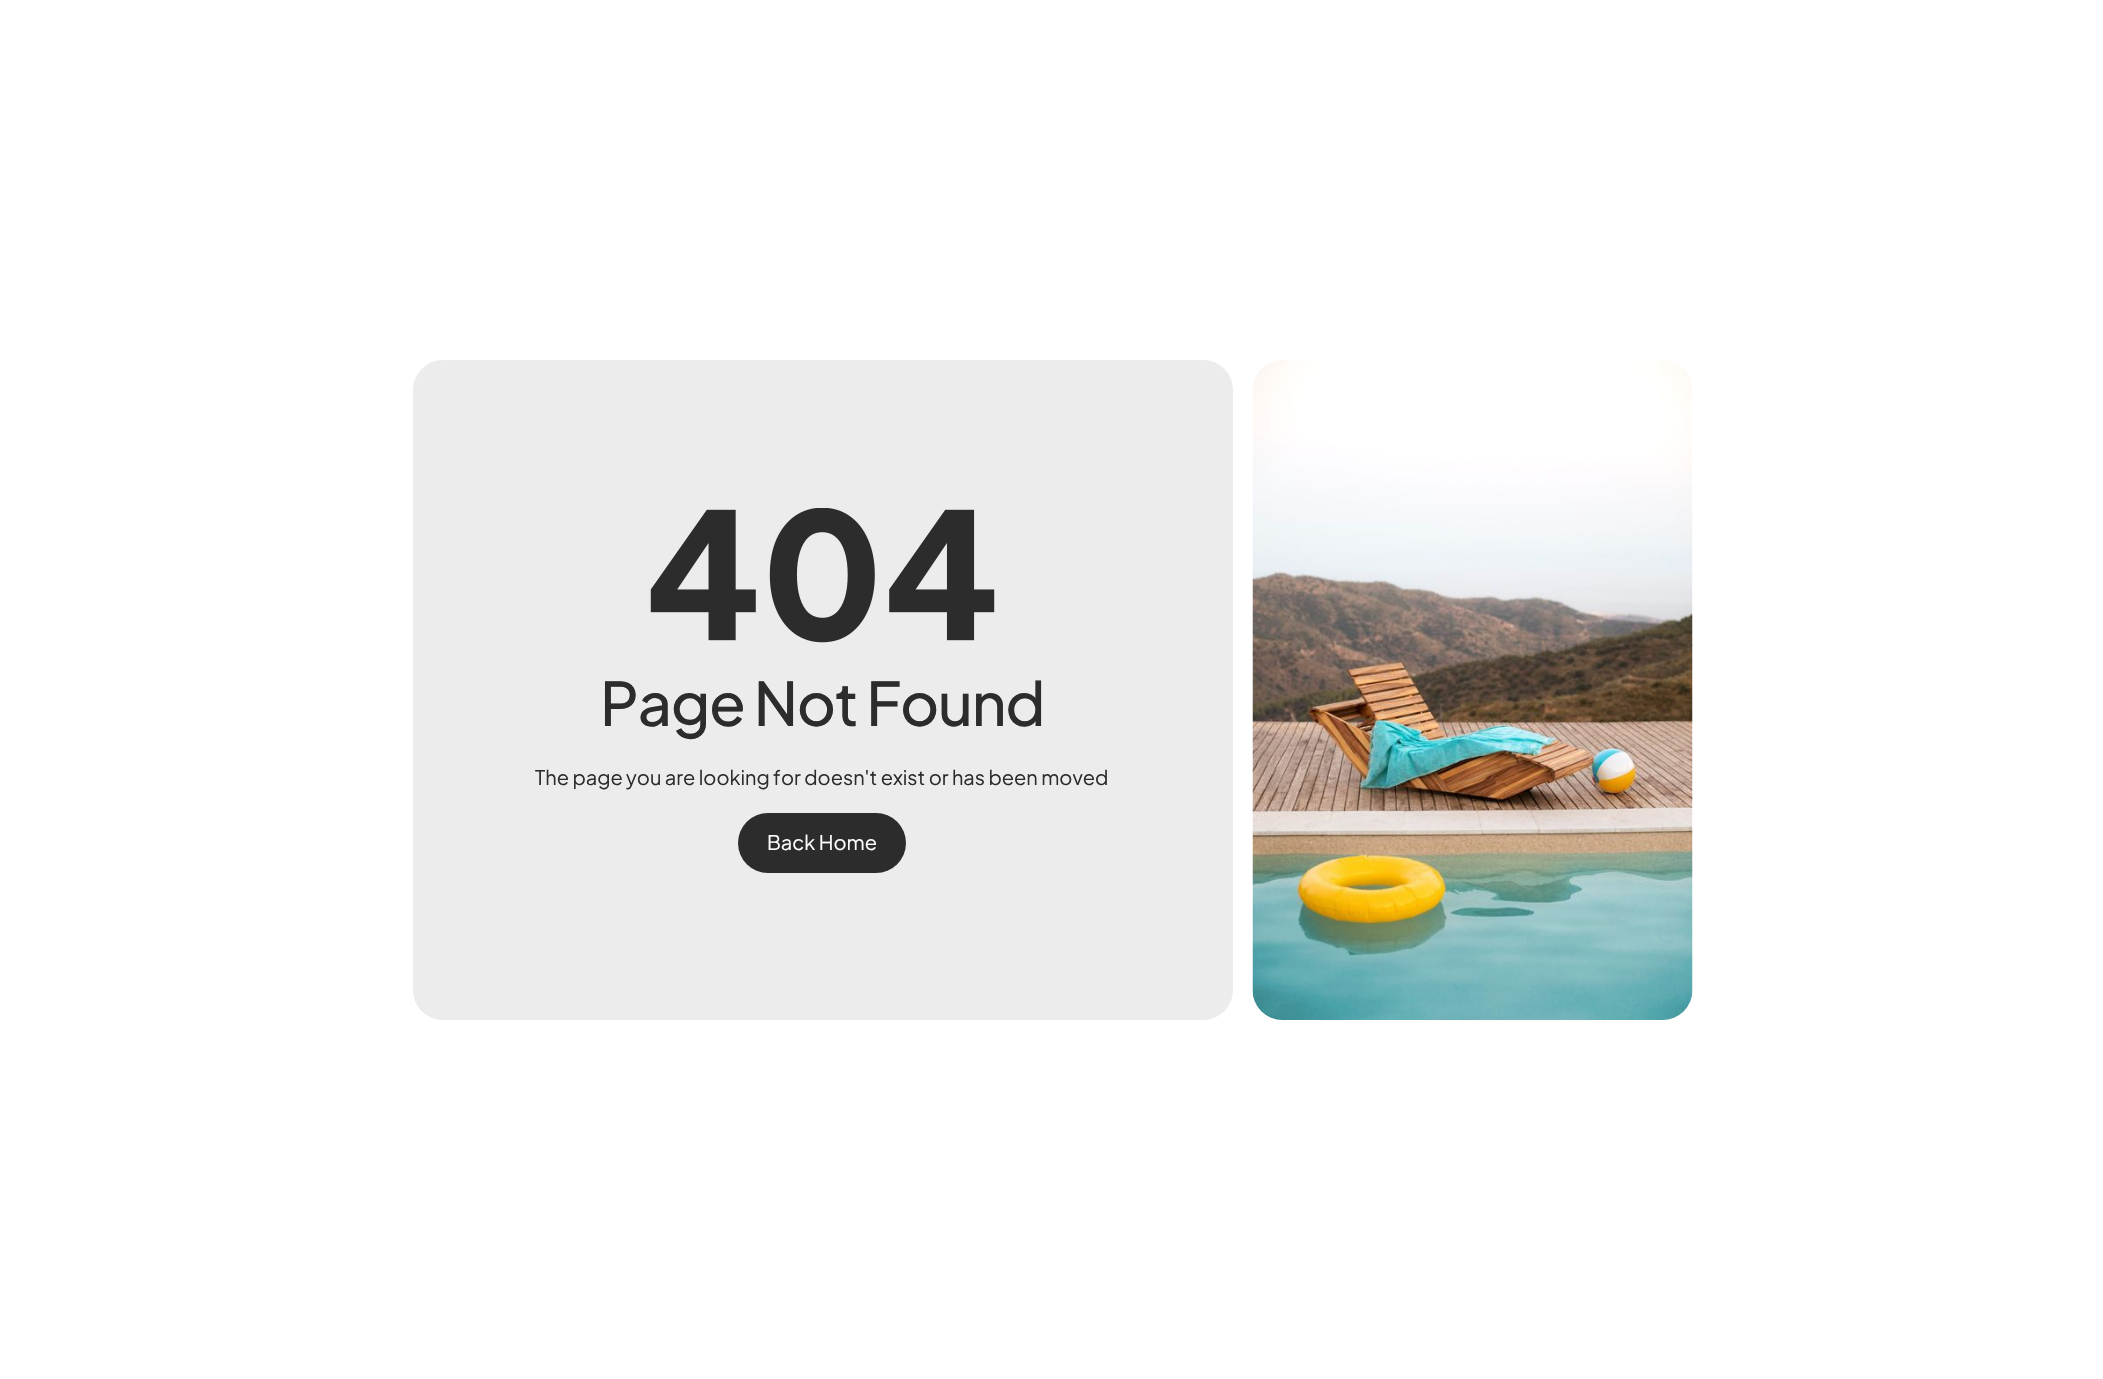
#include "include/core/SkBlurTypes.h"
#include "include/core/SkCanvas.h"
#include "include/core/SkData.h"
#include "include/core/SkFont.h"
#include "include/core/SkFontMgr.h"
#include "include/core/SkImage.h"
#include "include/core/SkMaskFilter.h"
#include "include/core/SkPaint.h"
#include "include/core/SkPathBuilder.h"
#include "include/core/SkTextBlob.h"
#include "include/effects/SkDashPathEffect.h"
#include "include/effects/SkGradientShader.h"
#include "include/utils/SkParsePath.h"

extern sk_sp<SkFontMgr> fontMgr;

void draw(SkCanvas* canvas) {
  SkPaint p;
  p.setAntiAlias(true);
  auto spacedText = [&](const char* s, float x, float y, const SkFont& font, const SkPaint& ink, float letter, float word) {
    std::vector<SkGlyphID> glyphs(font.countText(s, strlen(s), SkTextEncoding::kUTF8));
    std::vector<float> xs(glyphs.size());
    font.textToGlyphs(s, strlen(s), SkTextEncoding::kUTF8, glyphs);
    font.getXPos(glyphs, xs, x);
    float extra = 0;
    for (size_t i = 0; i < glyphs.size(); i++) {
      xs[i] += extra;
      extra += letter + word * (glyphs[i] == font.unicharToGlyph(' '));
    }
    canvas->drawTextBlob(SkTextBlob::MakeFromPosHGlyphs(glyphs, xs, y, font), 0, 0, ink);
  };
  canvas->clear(SK_ColorWHITE);
  p.setColor(SkColorSetRGB(236, 236, 236));
  canvas->drawRoundRect(SkRect::MakeLTRB(413, 360, 1233, 1020), 30, 30, p);
  canvas->drawImageRect(SkImages::DeferredFromEncodedData(SkData::MakeFromFileName("images/1.png")), SkRect::MakeLTRB(650, 508, 995, 643), SkSamplingOptions());
  p.setColor(SkColorSetRGB(44, 44, 44));
  canvas->drawRoundRect(SkRect::MakeLTRB(738, 813, 906, 873), 30, 30, p);
  canvas->drawImageRect(SkImages::DeferredFromEncodedData(SkData::MakeFromFileName("images/2.png")), SkRect::MakeLTRB(1252, 360, 1693, 1020), SkSamplingOptions());
  SkFont font1(fontMgr->matchFamilyStyle("Plus Jakarta Sans", SkFontStyle(500, SkFontStyle::kNormal_Width, SkFontStyle::kUpright_Slant)), 60);
  font1.setSubpixel(true);
  spacedText("Page Not Found", 600, 726, font1, p, -1.25f, 0);
  SkFont font2(fontMgr->matchFamilyStyle("Plus Jakarta Sans", SkFontStyle::Normal()), 20);
  font2.setSubpixel(true);
  canvas->drawString("The page you are looking for doesn't exist or has been moved", 535, 785, font2, p);
  p.setColor(SK_ColorWHITE);
  canvas->drawString("Back Home", 767, 850, font2, p);
}
